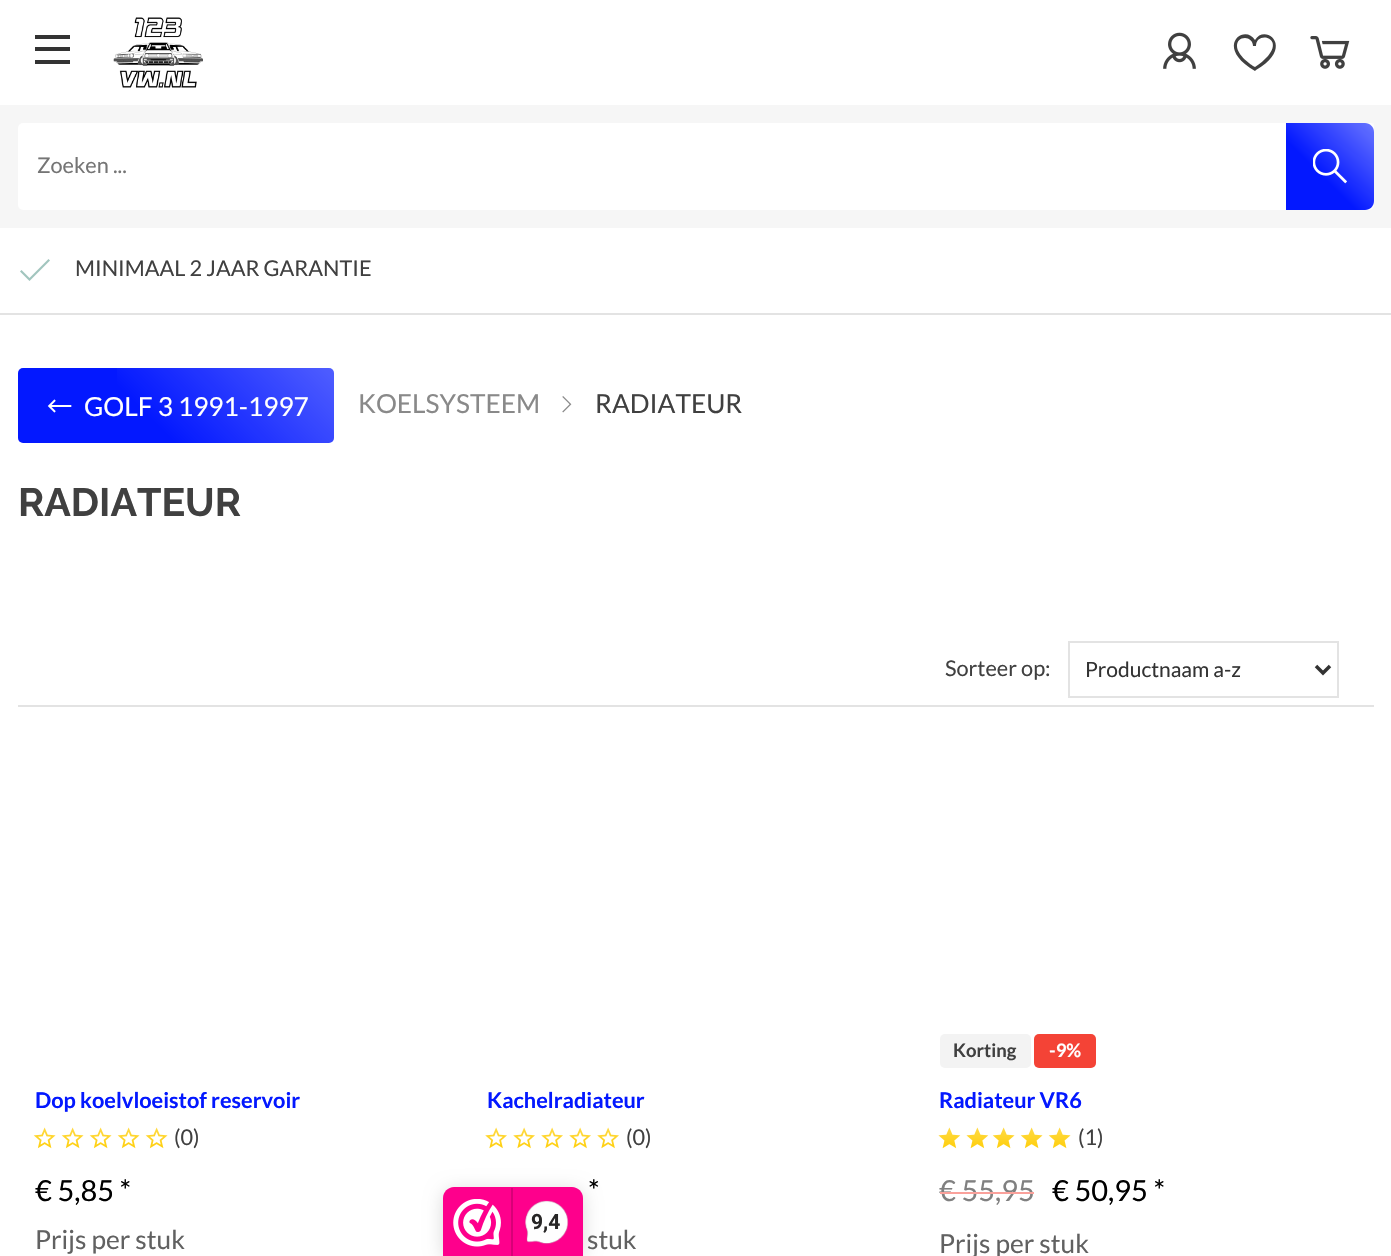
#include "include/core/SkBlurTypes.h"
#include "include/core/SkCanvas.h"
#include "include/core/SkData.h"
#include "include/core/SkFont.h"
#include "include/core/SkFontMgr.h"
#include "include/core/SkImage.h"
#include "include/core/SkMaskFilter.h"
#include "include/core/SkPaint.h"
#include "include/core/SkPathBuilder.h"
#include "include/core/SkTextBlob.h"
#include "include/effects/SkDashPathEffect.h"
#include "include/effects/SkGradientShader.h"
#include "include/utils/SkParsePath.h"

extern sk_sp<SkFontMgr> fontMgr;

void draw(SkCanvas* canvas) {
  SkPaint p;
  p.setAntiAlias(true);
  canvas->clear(SK_ColorWHITE);
  p.setColor(SkColorSetRGB(51, 51, 51));
  canvas->drawRect(SkRect::MakeLTRB(35, 35, 70, 39), p);
  canvas->drawRect(SkRect::MakeLTRB(35, 47, 70, 51), p);
  canvas->drawRect(SkRect::MakeLTRB(35, 60, 70, 64), p);
  canvas->drawImageRect(SkImages::DeferredFromEncodedData(SkData::MakeFromFileName("images/1.png")), SkRect::MakeLTRB(113, 17, 203, 88), SkSamplingOptions());
  canvas->drawImageRect(SkImages::DeferredFromEncodedData(SkData::MakeFromFileName("images/2.png")), SkRect::MakeLTRB(1163, 32, 1196, 69), SkSamplingOptions());
  p.setColor(SkColorSetRGB(64, 64, 64));
  canvas->drawPath(SkPathBuilder().moveTo(1255, 71).cubicTo(1213, 46, 1245, 23, 1255, 40).cubicTo(1265, 23, 1296, 47, 1256, 70).close().moveTo(1245, 38).cubicTo(1240, 38, 1237, 41, 1237, 46).cubicTo(1237, 55, 1251, 65, 1255, 67).cubicTo(1260, 64, 1264, 60, 1268, 56).cubicTo(1284, 37, 1256, 31, 1256, 46).lineTo(1253, 46).cubicTo(1253, 41, 1249, 38, 1245, 38).close().detach(), p);
  canvas->drawImageRect(SkImages::DeferredFromEncodedData(SkData::MakeFromFileName("images/3.png")), SkRect::MakeLTRB(1310, 36, 1350, 69), SkSamplingOptions());
  p.setColor(SkColorSetRGB(246, 246, 246));
  canvas->drawRect(SkRect::MakeLTRB(0, 105, 1391, 228), p);
  p.setColor(SK_ColorWHITE);
  canvas->drawRoundRect(SkRect::MakeLTRB(18, 123, 1374, 210), 5, 5, p);
  p.setColor(SkColorSetRGB(3, 24, 255));
  canvas->drawPath(SkPathBuilder().moveTo(1286, 123).lineTo(1365, 123).cubicTo(1370, 123, 1374, 127, 1374, 132).lineTo(1374, 201).cubicTo(1374, 206, 1370, 210, 1365, 210).lineTo(1286, 210).close().detach(), p);
  {
    const SkColor colors[] = {SkColorSetARGB(102, 255, 255, 255), SkColorSetARGB(0, 255, 255, 255)};
    const float stops[] = {0, 0.6f};
    const SkPoint ends[] = {{1374, 123}, {1286, 210}};
    p.setShader(SkGradientShader::MakeLinear(ends, colors, stops, 2, SkTileMode::kClamp));
    p.setAlpha(255);
  }
  canvas->drawRect(SkRect::MakeLTRB(1286, 123, 1374, 210), p);
  canvas->drawImageRect(SkImages::DeferredFromEncodedData(SkData::MakeFromFileName("images/4.png")), SkRect::MakeLTRB(1313, 149, 1347, 184), SkSamplingOptions());
  p.setShader(nullptr);
  p.setColor(SkColorSetRGB(227, 227, 227));
  canvas->drawRect(SkRect::MakeLTRB(0, 313, 1391, 315), p);
  p.setColor(SkColorSetRGB(161, 197, 190));
  canvas->drawPath(SkPathBuilder().moveTo(48.5f, 259).lineTo(29.5f, 278).lineTo(21.5f, 270).lineTo(20, 271.5f).lineTo(29.5f, 281).lineTo(50, 260.5f).close().detach(), p);
  p.setColor(SkColorSetRGB(3, 24, 255));
  canvas->drawRoundRect(SkRect::MakeLTRB(18, 368, 334, 443), 5, 5, p);
  {
    const SkColor colors[] = {SkColorSetARGB(77, 255, 255, 255), SkColorSetARGB(0, 255, 255, 255)};
    const float stops[] = {0, 0.6f};
    const SkPoint ends[] = {{274, 307}, {78, 503}};
    p.setShader(SkGradientShader::MakeLinear(ends, colors, stops, 2, SkTileMode::kClamp));
    p.setAlpha(255);
  }
  canvas->drawRect(SkRect::MakeLTRB(117, 368, 334, 443), p);
  canvas->drawImageRect(SkImages::DeferredFromEncodedData(SkData::MakeFromFileName("images/5.png")), SkRect::MakeLTRB(47, 399, 72, 413), SkSamplingOptions());
  canvas->drawImageRect(SkImages::DeferredFromEncodedData(SkData::MakeFromFileName("images/6.png")), SkRect::MakeLTRB(562, 396, 572, 413), SkSamplingOptions());
  p.setShader(nullptr);
  p.setColor(SkColorSetRGB(227, 227, 227));
  canvas->drawRect(SkRect::MakeLTRB(18, 705, 1374, 707), p);
  p.setStyle(SkPaint::kStroke_Style);
  p.setStrokeWidth(2);
  canvas->drawRect(SkRect::MakeLTRB(1069, 642, 1338, 697), p);
  p.setStrokeWidth(3.5f);
  p.setColor(SkColorSetRGB(51, 51, 51));
  canvas->drawPath(SkPathBuilder().moveTo(1316, 666).lineTo(1323, 673).lineTo(1330, 666).detach(), p);
  canvas->drawImageRect(SkImages::DeferredFromEncodedData(SkData::MakeFromFileName("images/7.png")), SkRect::MakeLTRB(33, 1127, 56, 1149), SkSamplingOptions());
  canvas->drawImageRect(SkImages::DeferredFromEncodedData(SkData::MakeFromFileName("images/7.png")), SkRect::MakeLTRB(61, 1127, 84, 1149), SkSamplingOptions());
  canvas->drawImageRect(SkImages::DeferredFromEncodedData(SkData::MakeFromFileName("images/7.png")), SkRect::MakeLTRB(89, 1127, 112, 1149), SkSamplingOptions());
  canvas->drawImageRect(SkImages::DeferredFromEncodedData(SkData::MakeFromFileName("images/7.png")), SkRect::MakeLTRB(117, 1127, 140, 1149), SkSamplingOptions());
  canvas->drawImageRect(SkImages::DeferredFromEncodedData(SkData::MakeFromFileName("images/7.png")), SkRect::MakeLTRB(145, 1127, 168, 1149), SkSamplingOptions());
  canvas->drawImageRect(SkImages::DeferredFromEncodedData(SkData::MakeFromFileName("images/8.png")), SkRect::MakeLTRB(485, 1127, 507, 1149), SkSamplingOptions());
  canvas->drawImageRect(SkImages::DeferredFromEncodedData(SkData::MakeFromFileName("images/8.png")), SkRect::MakeLTRB(513, 1127, 535, 1149), SkSamplingOptions());
  canvas->drawImageRect(SkImages::DeferredFromEncodedData(SkData::MakeFromFileName("images/8.png")), SkRect::MakeLTRB(541, 1127, 563, 1149), SkSamplingOptions());
  canvas->drawImageRect(SkImages::DeferredFromEncodedData(SkData::MakeFromFileName("images/8.png")), SkRect::MakeLTRB(569, 1127, 591, 1149), SkSamplingOptions());
  canvas->drawImageRect(SkImages::DeferredFromEncodedData(SkData::MakeFromFileName("images/8.png")), SkRect::MakeLTRB(597, 1127, 619, 1149), SkSamplingOptions());
  p.setStyle(SkPaint::kFill_Style);
  p.setColor(SkColorSetRGB(243, 243, 243));
  canvas->drawRoundRect(SkRect::MakeLTRB(940, 1034, 1031, 1068), 5, 5, p);
  p.setColor(SkColorSetRGB(244, 67, 54));
  canvas->drawRoundRect(SkRect::MakeLTRB(1034, 1034, 1096, 1068), 5, 5, p);
  canvas->drawImageRect(SkImages::DeferredFromEncodedData(SkData::MakeFromFileName("images/9.png")), SkRect::MakeLTRB(938, 1127, 961, 1149), SkSamplingOptions());
  canvas->drawImageRect(SkImages::DeferredFromEncodedData(SkData::MakeFromFileName("images/9.png")), SkRect::MakeLTRB(966, 1127, 989, 1149), SkSamplingOptions());
  canvas->drawImageRect(SkImages::DeferredFromEncodedData(SkData::MakeFromFileName("images/10.png")), SkRect::MakeLTRB(992, 1127, 1015, 1149), SkSamplingOptions());
  canvas->drawImageRect(SkImages::DeferredFromEncodedData(SkData::MakeFromFileName("images/10.png")), SkRect::MakeLTRB(1020, 1127, 1043, 1149), SkSamplingOptions());
  canvas->drawImageRect(SkImages::DeferredFromEncodedData(SkData::MakeFromFileName("images/10.png")), SkRect::MakeLTRB(1048, 1127, 1071, 1149), SkSamplingOptions());
  p.setColor(SkColorSetARGB(38, 0, 0, 0));
  p.setMaskFilter(SkMaskFilter::MakeBlur(kNormal_SkBlurStyle, 9));
  canvas->drawRoundRect(SkRect::MakeLTRB(443, 1190, 583, 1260), 11, 11, p);
  p.setMaskFilter(nullptr);
  p.setColor(SkColorSetRGB(254, 0, 140));
  canvas->drawPath(SkPathBuilder().moveTo(454, 1187).lineTo(572, 1187).cubicTo(578, 1187, 583, 1192, 583, 1198).lineTo(583, 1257).lineTo(443, 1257).lineTo(443, 1198).cubicTo(443, 1192, 448, 1187, 454, 1187).close().detach(), p);
  canvas->drawImageRect(SkImages::DeferredFromEncodedData(SkData::MakeFromFileName("images/11.png")), SkRect::MakeLTRB(453, 1199, 501, 1247), SkSamplingOptions());
  p.setColor(SkColorSetRGB(216, 0, 119));
  canvas->drawRect(SkRect::MakeLTRB(511, 1188, 513, 1256), p);
  canvas->drawImageRect(SkImages::DeferredFromEncodedData(SkData::MakeFromFileName("images/12.png")), SkRect::MakeLTRB(525, 1200, 569, 1245), SkSamplingOptions());
  SkFont font1(fontMgr->matchFamilyStyle("Lato", SkFontStyle::Normal()), 21.7f);
  font1.setSubpixel(true);
  p.setColor(SkColorSetRGB(117, 117, 117));
  canvas->drawString("Zoeken ...", 37, 173, font1, p);
  p.setColor(SkColorSetRGB(64, 64, 64));
  canvas->drawString("MINIMAAL 2 JAAR GARANTIE", 75, 276, font1, p);
  SkFont font2(fontMgr->matchFamilyStyle("Lato", SkFontStyle::Normal()), 26.25f);
  font2.setSubpixel(true);
  p.setColor(SK_ColorWHITE);
  canvas->drawString("GOLF 3 1991-1997", 84, 416, font2, p);
  p.setColor(SkColorSetRGB(137, 137, 137));
  canvas->drawString("KOELSYSTEEM", 358, 413, font2, p);
  p.setColor(SkColorSetRGB(64, 64, 64));
  canvas->drawString("RADIATEUR", 595, 413, font2, p);
  SkFont font3(fontMgr->matchFamilyStyle("Raleway", SkFontStyle::Bold()), 39.5f);
  font3.setSubpixel(true);
  canvas->drawString("RADIATEUR", 18, 516, font3, p);
  canvas->drawString("Sorteer op:", 945, 676, font1, p);
  SkFont font4(fontMgr->matchFamilyStyle("Lato", SkFontStyle::Normal()), 21);
  font4.setSubpixel(true);
  p.setColor(SkColorSetRGB(51, 51, 51));
  canvas->drawString("Productnaam a-z", 1085, 677, font4, p);
  SkFont font5(fontMgr->matchFamilyStyle("Lato", SkFontStyle::Bold()), 21.7f);
  font5.setSubpixel(true);
  p.setColor(SkColorSetRGB(3, 24, 255));
  canvas->drawString("Dop koelvloeistof reservoir", 35, 1108, font5, p);
  p.setColor(SkColorSetRGB(64, 64, 64));
  canvas->drawString("(0)", 174, 1145, font1, p);
  SkFont font6(fontMgr->matchFamilyStyle("Lato", SkFontStyle::Normal()), 29);
  font6.setSubpixel(true);
  p.setColor(SK_ColorBLACK);
  canvas->drawString("€ 5,85 *", 35, 1201, font6, p);
  p.setColor(SkColorSetRGB(97, 97, 97));
  canvas->drawString("Prijs per stuk", 35, 1249, font2, p);
  p.setColor(SkColorSetRGB(3, 24, 255));
  canvas->drawString("Kachelradiateur", 487, 1108, font5, p);
  p.setColor(SkColorSetRGB(64, 64, 64));
  canvas->drawString("(0)", 626, 1145, font1, p);
  p.setColor(SK_ColorBLACK);
  canvas->drawString("*", 588, 1201, font6, p);
  p.setColor(SkColorSetRGB(97, 97, 97));
  canvas->drawString("stuk", 587, 1249, font2, p);
  SkFont font7(fontMgr->matchFamilyStyle("Lato", SkFontStyle::Bold()), 18.5f);
  font7.setSubpixel(true);
  p.setColor(SkColorSetRGB(64, 64, 64));
  canvas->drawString("Korting", 953, 1057, font7, p);
  p.setColor(SK_ColorWHITE);
  canvas->drawString("-9%", 1049, 1057, font7, p);
  p.setColor(SkColorSetRGB(3, 24, 255));
  canvas->drawString("Radiateur VR6", 939, 1108, font5, p);
  p.setColor(SkColorSetRGB(64, 64, 64));
  canvas->drawString("(1)", 1078, 1145, font1, p);
  p.setColor(SkColorSetRGB(128, 128, 128));
  canvas->drawString("€ 55,95", 939, 1201, font6, p);
  p.setColor(SkColorSetRGB(250, 161, 155));
  canvas->drawRect(SkRect::MakeLTRB(940, 1192, 1034, 1194), p);
  p.setColor(SK_ColorBLACK);
  canvas->drawString("€ 50,95 *", 1052, 1201, font6, p);
  p.setColor(SkColorSetRGB(97, 97, 97));
  canvas->drawString("Prijs per stuk", 939, 1253, font2, p);
  SkFont font8(fontMgr->matchFamilyStyle("Roboto", SkFontStyle::Bold()), 21);
  font8.setSubpixel(true);
  p.setColor(SkColorSetRGB(39, 38, 38));
  canvas->drawString("9,4", 531, 1229, font8, p);
}
